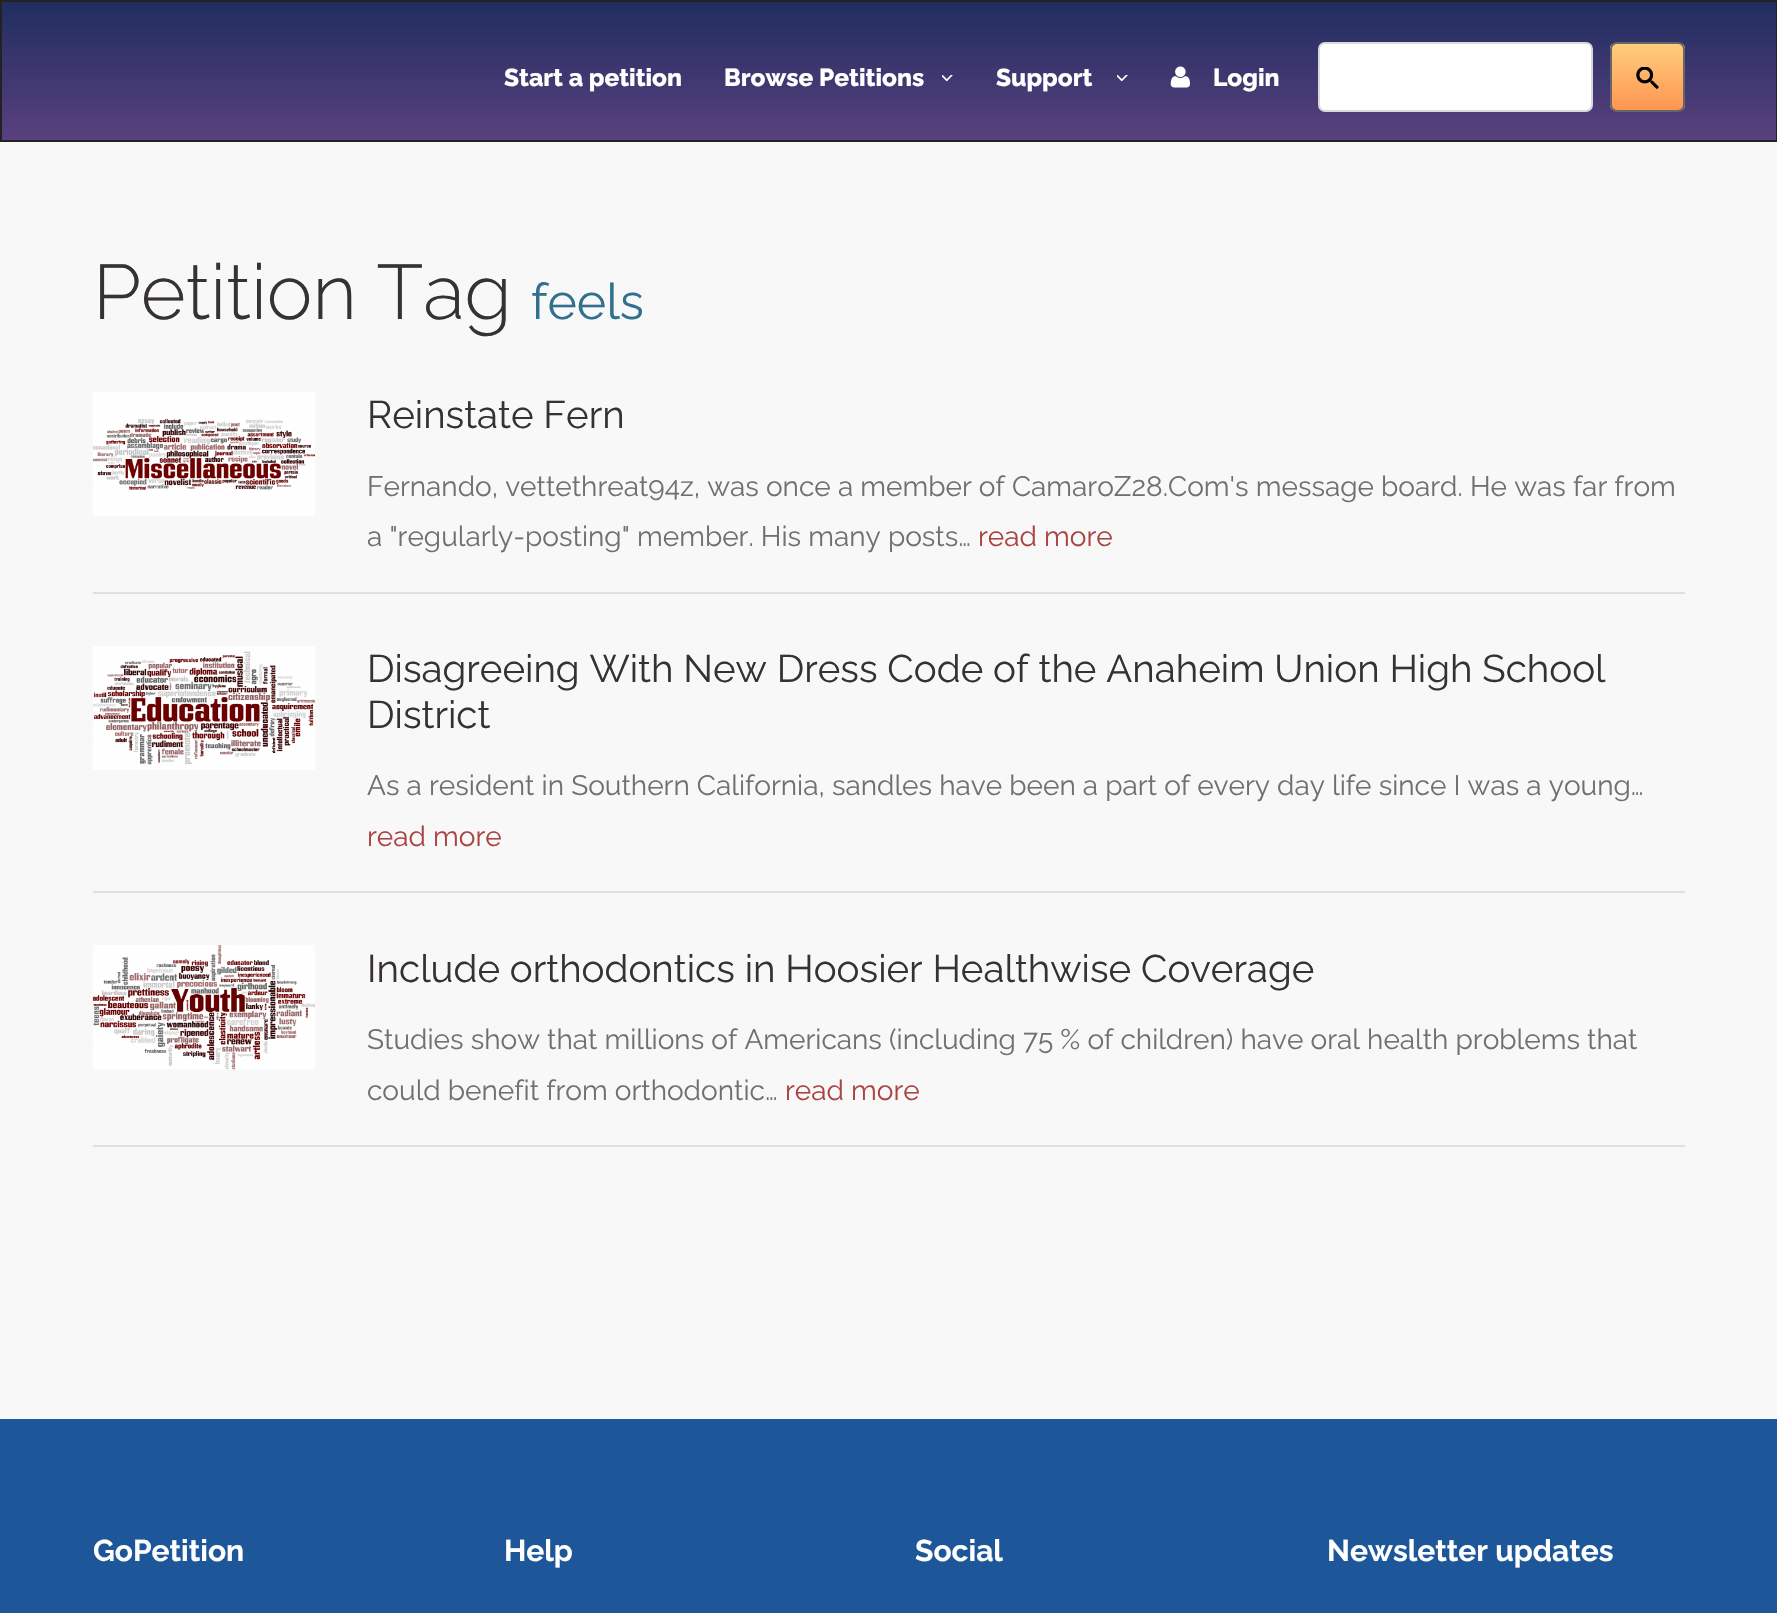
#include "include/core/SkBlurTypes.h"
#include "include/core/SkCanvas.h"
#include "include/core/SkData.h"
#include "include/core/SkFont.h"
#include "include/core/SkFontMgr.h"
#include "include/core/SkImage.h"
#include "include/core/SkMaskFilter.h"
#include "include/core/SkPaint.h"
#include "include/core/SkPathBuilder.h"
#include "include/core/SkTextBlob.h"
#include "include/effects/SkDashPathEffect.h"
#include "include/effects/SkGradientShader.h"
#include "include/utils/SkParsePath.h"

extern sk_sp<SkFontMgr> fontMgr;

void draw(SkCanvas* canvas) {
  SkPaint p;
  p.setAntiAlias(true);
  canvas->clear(SkColorSetRGB(248, 248, 248));
  {
    const SkColor colors[] = {SkColorSetRGB(32, 46, 95), SkColorSetRGB(89, 64, 126)};
    const float stops[] = {0, 1};
    const SkPoint ends[] = {{889, 1.7f}, {889, 140}};
    p.setShader(SkGradientShader::MakeLinear(ends, colors, stops, 2, SkTileMode::kClamp));
    p.setAlpha(255);
  }
  canvas->drawRect(SkRect::MakeLTRB(2, 2, 1776, 140), p);
  p.setStyle(SkPaint::kStroke_Style);
  p.setStrokeWidth(2);
  p.setShader(nullptr);
  p.setColor(SkColorSetRGB(34, 34, 34));
  canvas->drawRect(SkRect::MakeLTRB(1, 1, 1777, 141), p);
  canvas->drawImageRect(SkImages::DeferredFromEncodedData(SkData::MakeFromFileName("images/1.png")), SkRect::MakeLTRB(942, 75, 953, 82), SkSamplingOptions());
  canvas->drawImageRect(SkImages::DeferredFromEncodedData(SkData::MakeFromFileName("images/1.png")), SkRect::MakeLTRB(1117, 75, 1128, 82), SkSamplingOptions());
  canvas->drawImageRect(SkImages::DeferredFromEncodedData(SkData::MakeFromFileName("images/2.png")), SkRect::MakeLTRB(1170, 66, 1190, 88), SkSamplingOptions());
  p.setStyle(SkPaint::kFill_Style);
  p.setColor(SK_ColorWHITE);
  canvas->drawRoundRect(SkRect::MakeLTRB(1319, 43, 1592, 111), 6, 6, p);
  p.setStyle(SkPaint::kStroke_Style);
  p.setColor(SkColorSetRGB(217, 217, 217));
  canvas->drawRoundRect(SkRect::MakeLTRB(1319, 43, 1592, 111), 6, 6, p);
  canvas->save();
  canvas->clipPath(SkPathBuilder().moveTo(1617, 42).lineTo(1678, 42).cubicTo(1682, 42, 1685, 45, 1685, 49).lineTo(1685, 105).cubicTo(1685, 109, 1682, 112, 1678, 112).lineTo(1617, 112).cubicTo(1613, 112, 1610, 109, 1610, 105).lineTo(1610, 49).cubicTo(1610, 45, 1613, 42, 1617, 42).close().detach(), true);
  p.setStyle(SkPaint::kFill_Style);
  {
    const SkColor colors[] = {SkColorSetRGB(255, 149, 82), SkColorSetRGB(255, 205, 125)};
    const float stops[] = {0, 1};
    const SkPoint ends[] = {{1648, 110}, {1648, 44}};
    p.setShader(SkGradientShader::MakeLinear(ends, colors, stops, 2, SkTileMode::kClamp));
    p.setAlpha(255);
  }
  canvas->drawRect(SkRect::MakeLTRB(1610, 44, 1685, 110), p);
  canvas->restore();
  p.setStyle(SkPaint::kStroke_Style);
  p.setShader(nullptr);
  p.setColor(SkColorSetRGB(102, 102, 102));
  canvas->drawRoundRect(SkRect::MakeLTRB(1611, 43, 1684, 111), 6, 6, p);
  canvas->drawImageRect(SkImages::DeferredFromEncodedData(SkData::MakeFromFileName("images/3.png")), SkRect::MakeLTRB(1636, 67, 1659, 89), SkSamplingOptions());
  p.setStyle(SkPaint::kFill_Style);
  p.setColor(SkColorSetRGB(224, 224, 224));
  canvas->drawRect(SkRect::MakeLTRB(93, 592, 1685, 594), p);
  canvas->drawImageRect(SkImages::DeferredFromEncodedData(SkData::MakeFromFileName("images/4.png")), SkRect::MakeLTRB(92, 392, 315, 516), SkSamplingOptions());
  canvas->drawRect(SkRect::MakeLTRB(93, 891, 1685, 893), p);
  canvas->drawImageRect(SkImages::DeferredFromEncodedData(SkData::MakeFromFileName("images/5.png")), SkRect::MakeLTRB(93, 646, 315, 770), SkSamplingOptions());
  canvas->drawRect(SkRect::MakeLTRB(93, 1145, 1685, 1147), p);
  canvas->drawImageRect(SkImages::DeferredFromEncodedData(SkData::MakeFromFileName("images/6.png")), SkRect::MakeLTRB(92, 945, 315, 1070), SkSamplingOptions());
  p.setColor(SkColorSetRGB(30, 87, 153));
  canvas->drawRect(SkRect::MakeLTRB(0, 1419, 1777, 1613), p);
  SkFont font1(fontMgr->matchFamilyStyle("Raleway", SkFontStyle(800, SkFontStyle::kNormal_Width, SkFontStyle::kUpright_Slant)), 24.5f);
  font1.setSubpixel(true);
  p.setColor(SK_ColorWHITE);
  canvas->drawString("Start a petition", 504, 86, font1, p);
  canvas->drawString("Browse Petitions", 724, 86, font1, p);
  canvas->drawString("Support", 996, 86, font1, p);
  canvas->drawString("Login", 1213, 86, font1, p);
  SkFont font2(fontMgr->matchFamilyStyle("Raleway", SkFontStyle(300, SkFontStyle::kNormal_Width, SkFontStyle::kUpright_Slant)), 77);
  font2.setSubpixel(true);
  p.setColor(SkColorSetRGB(54, 49, 53));
  canvas->drawString("Petition Tag", 93, 319, font2, p);
  SkFont font3(fontMgr->matchFamilyStyle("Raleway", SkFontStyle::Normal()), 50);
  font3.setSubpixel(true);
  p.setColor(SkColorSetRGB(49, 112, 143));
  canvas->drawString("feels", 531, 319, font3, p);
  SkFont font4(fontMgr->matchFamilyStyle("Raleway", SkFontStyle::Normal()), 38.5f);
  font4.setSubpixel(true);
  p.setColor(SkColorSetRGB(54, 49, 53));
  canvas->drawString("Reinstate Fern", 367, 428, font4, p);
  SkFont font5(fontMgr->matchFamilyStyle("Raleway", SkFontStyle::Normal()), 28);
  font5.setSubpixel(true);
  p.setColor(SkColorSetRGB(112, 112, 112));
  canvas->drawString("Fernando, vettethreat94z, was once a member of CamaroZ28.Com's message board. He was far from", 367, 496, font5, p);
  canvas->drawString("a \"regularly-posting\" member. His many posts…", 367, 546, font5, p);
  p.setColor(SkColorSetRGB(169, 68, 66));
  canvas->drawString("read more", 978, 546, font5, p);
  p.setColor(SkColorSetRGB(54, 49, 53));
  canvas->drawString("Disagreeing With New Dress Code of the Anaheim Union High School", 367, 682, font4, p);
  canvas->drawString("District", 367, 728, font4, p);
  p.setColor(SkColorSetRGB(112, 112, 112));
  canvas->drawString("As a resident in Southern California, sandles have been a part of every day life since I was a young…", 367, 795, font5, p);
  p.setColor(SkColorSetRGB(169, 68, 66));
  canvas->drawString("read more", 367, 846, font5, p);
  p.setColor(SkColorSetRGB(54, 49, 53));
  canvas->drawString("Include orthodontics in Hoosier Healthwise Coverage", 367, 982, font4, p);
  p.setColor(SkColorSetRGB(112, 112, 112));
  canvas->drawString("Studies show that millions of Americans (including 75 % of children) have oral health problems that", 367, 1049, font5, p);
  canvas->drawString("could benefit from orthodontic…", 367, 1100, font5, p);
  p.setColor(SkColorSetRGB(169, 68, 66));
  canvas->drawString("read more", 785, 1100, font5, p);
  SkFont font6(fontMgr->matchFamilyStyle("Raleway", SkFontStyle::Bold()), 30);
  font6.setSubpixel(true);
  p.setColor(SK_ColorWHITE);
  canvas->drawString("GoPetition", 93, 1561, font6, p);
  canvas->drawString("Help", 504, 1561, font6, p);
  canvas->drawString("Social", 915, 1561, font6, p);
  canvas->drawString("Newsletter updates", 1327, 1561, font6, p);
}
